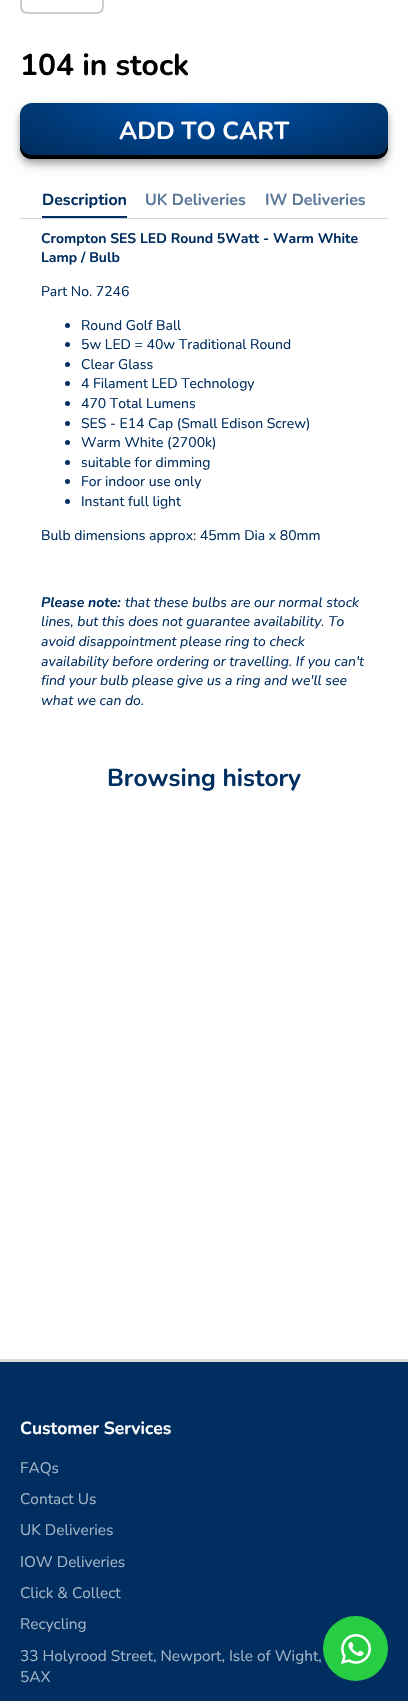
#include "include/core/SkBlurTypes.h"
#include "include/core/SkCanvas.h"
#include "include/core/SkData.h"
#include "include/core/SkFont.h"
#include "include/core/SkFontMgr.h"
#include "include/core/SkImage.h"
#include "include/core/SkMaskFilter.h"
#include "include/core/SkPaint.h"
#include "include/core/SkPathBuilder.h"
#include "include/core/SkTextBlob.h"
#include "include/effects/SkDashPathEffect.h"
#include "include/effects/SkGradientShader.h"
#include "include/utils/SkParsePath.h"

extern sk_sp<SkFontMgr> fontMgr;

void draw(SkCanvas* canvas) {
  SkPaint p;
  p.setAntiAlias(true);
  canvas->clear(SK_ColorWHITE);
  p.setStyle(SkPaint::kStroke_Style);
  p.setStrokeWidth(2);
  p.setColor(SkColorSetRGB(204, 204, 204));
  canvas->drawRoundRect(SkRect::MakeLTRB(21, -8, 103, 13), 6, 6, p);
  p.setStyle(SkPaint::kFill_Style);
  p.setColor(SkColorSetARGB(38, 0, 0, 0));
  p.setMaskFilter(SkMaskFilter::MakeBlur(kNormal_SkBlurStyle, 7.5f));
  canvas->drawRoundRect(SkRect::MakeLTRB(24, 114, 384, 163), 8, 8, p);
  p.setMaskFilter(nullptr);
  p.setColor(SkColorSetARGB(77, 0, 0, 0));
  p.setMaskFilter(SkMaskFilter::MakeBlur(kNormal_SkBlurStyle, 3.5f));
  canvas->drawRoundRect(SkRect::MakeLTRB(20, 107, 388, 163), 12, 12, p);
  p.setMaskFilter(nullptr);
  canvas->save();
  canvas->clipPath(SkPathBuilder().moveTo(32, 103).lineTo(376, 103).cubicTo(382.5f, 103, 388, 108.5f, 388, 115).lineTo(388, 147).cubicTo(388, 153.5f, 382.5f, 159, 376, 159).lineTo(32, 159).cubicTo(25.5f, 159, 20, 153.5f, 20, 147).lineTo(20, 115).cubicTo(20, 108.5f, 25.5f, 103, 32, 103).close().detach(), true);
  p.setMaskFilter(SkMaskFilter::MakeBlur(kNormal_SkBlurStyle, 3.5f));
  canvas->drawRoundRect(SkRect::MakeLTRB(20, 107, 388, 163), 12, 12, p);
  p.setMaskFilter(nullptr);
  canvas->restore();
  {
    const SkColor colors[] = {SkColorSetRGB(0, 83, 173), SkColorSetRGB(0, 46, 96)};
    const float stops[] = {0, 0.9f};
    SkMatrix m = SkMatrix::Translate(204, 103).preScale(260, 79);
    p.setShader(SkGradientShader::MakeRadial({0, 0}, 1, colors, stops, 2, SkTileMode::kClamp, 0, &m));
    p.setAlpha(255);
  }
  canvas->drawRoundRect(SkRect::MakeLTRB(20, 103, 388, 159), 12, 12, p);
  p.setShader(nullptr);
  p.setColor(SkColorSetRGB(0, 2, 4));
  canvas->drawPath(SkPathBuilder().moveTo(20, 143).lineTo(20, 147).cubicTo(20, 154, 25, 159, 32, 159).lineTo(376, 159).cubicTo(383, 159, 388, 154, 388, 147).lineTo(388, 143).cubicTo(388, 150, 383, 155, 376, 155).lineTo(32, 155).cubicTo(25, 155, 20, 150, 20, 143).close().detach(), p);
  p.setColor(SkColorSetRGB(204, 211, 218));
  canvas->drawRect(SkRect::MakeLTRB(20, 218, 388, 219), p);
  p.setColor(SkColorSetRGB(0, 46, 96));
  canvas->drawRect(SkRect::MakeLTRB(42, 216, 127, 218), p);
  canvas->drawCircle(67.5f, 325.5f, 2.5f, p);
  canvas->drawCircle(67.5f, 344.5f, 2.5f, p);
  canvas->drawCircle(67.5f, 364.5f, 2.5f, p);
  canvas->drawCircle(67.5f, 383.5f, 2.5f, p);
  canvas->drawCircle(67.5f, 403.5f, 2.5f, p);
  canvas->drawCircle(67.5f, 423.5f, 2.5f, p);
  canvas->drawCircle(67.5f, 442.5f, 2.5f, p);
  canvas->drawCircle(67.5f, 462.5f, 2.5f, p);
  canvas->drawCircle(67.5f, 481.5f, 2.5f, p);
  canvas->drawCircle(67.5f, 501.5f, 2.5f, p);
  canvas->drawRect(SkRect::MakeLTRB(0, 1362, 408, 1701), p);
  p.setColor(SkColorSetRGB(218, 218, 218));
  canvas->drawRect(SkRect::MakeLTRB(0, 1359, 408, 1362), p);
  p.setColor(SkColorSetRGB(39, 206, 67));
  canvas->drawCircle(355.5f, 1648.5f, 32.5f, p);
  canvas->drawImageRect(SkImages::DeferredFromEncodedData(SkData::MakeFromFileName("images/1.png")), SkRect::MakeLTRB(341, 1634, 371, 1664), SkSamplingOptions());
  SkFont font1(fontMgr->matchFamilyStyle("Nunito", SkFontStyle::Bold()), 30);
  font1.setSubpixel(true);
  p.setColor(SK_ColorBLACK);
  canvas->drawString("104 in stock", 20, 75, font1, p);
  SkFont font2(fontMgr->matchFamilyStyle("Nunito", SkFontStyle::Bold()), 24.5f);
  font2.setSubpixel(true);
  p.setColor(SK_ColorWHITE);
  canvas->drawString("ADD TO CART", 119, 139, font2, p);
  SkFont font3(fontMgr->matchFamilyStyle("Nunito", SkFontStyle::Bold()), 16);
  font3.setSubpixel(true);
  p.setColor(SkColorSetRGB(0, 46, 96));
  canvas->drawString("Description", 42, 205, font3, p);
  p.setColor(SkColorSetRGB(92, 121, 153));
  canvas->drawString("UK Deliveries", 145, 205, font3, p);
  canvas->drawString("IW Deliveries", 265, 205, font3, p);
  SkFont font4(fontMgr->matchFamilyStyle("Nunito", SkFontStyle::Bold()), 14);
  font4.setSubpixel(true);
  p.setColor(SkColorSetRGB(0, 46, 96));
  canvas->drawString("Crompton SES LED Round 5Watt - Warm White", 41, 243, font4, p);
  canvas->drawString("Lamp / Bulb", 41, 262, font4, p);
  SkFont font5(fontMgr->matchFamilyStyle("Nunito", SkFontStyle::Normal()), 14);
  font5.setSubpixel(true);
  canvas->drawString("Part No. 7246", 41, 296, font5, p);
  canvas->drawString("Round Golf Ball", 81, 330, font5, p);
  canvas->drawString("5w LED = 40w Traditional Round", 81, 349, font5, p);
  canvas->drawString("Clear Glass", 81, 369, font5, p);
  canvas->drawString("4 Filament LED Technology", 81, 388, font5, p);
  canvas->drawString("470 Total Lumens", 81, 408, font5, p);
  canvas->drawString("SES - E14 Cap (Small Edison Screw)", 81, 428, font5, p);
  canvas->drawString("Warm White (2700k)", 81, 447, font5, p);
  canvas->drawString("suitable for dimming", 81, 467, font5, p);
  canvas->drawString("For indoor use only", 81, 486, font5, p);
  canvas->drawString("Instant full light", 81, 506, font5, p);
  canvas->drawString("Bulb dimensions approx: 45mm Dia x 80mm", 41, 540, font5, p);
  SkFont font6(fontMgr->matchFamilyStyle("Nunito", SkFontStyle::BoldItalic()), 14);
  font6.setSubpixel(true);
  canvas->drawString("Please note:", 41, 607, font6, p);
  SkFont font7(fontMgr->matchFamilyStyle("Nunito", SkFontStyle::Italic()), 14);
  font7.setSubpixel(true);
  canvas->drawString("that these bulbs are our normal stock", 125, 607, font7, p);
  canvas->drawString("lines, but this does not guarantee availability. To", 41, 626, font7, p);
  canvas->drawString("avoid disappointment please ring to check", 41, 646, font7, p);
  canvas->drawString("availability before ordering or travelling. If you can't", 41, 666, font7, p);
  canvas->drawString("find your bulb please give us a ring and we'll see", 41, 685, font7, p);
  canvas->drawString("what we can do.", 41, 705, font7, p);
  canvas->drawString("Browsing history", 107, 786, font2, p);
  SkFont font8(fontMgr->matchFamilyStyle("Nunito", SkFontStyle::Bold()), 17.5f);
  font8.setSubpixel(true);
  p.setColor(SK_ColorWHITE);
  canvas->drawString("Customer Services", 20, 1434, font8, p);
  SkFont font9(fontMgr->matchFamilyStyle("Nunito", SkFontStyle::Normal()), 15.4f);
  font9.setSubpixel(true);
  p.setColor(SkColorSetRGB(163, 180, 198));
  canvas->drawString("FAQs", 20, 1473, font9, p);
  canvas->drawString("Contact Us", 20, 1504, font9, p);
  canvas->drawString("UK Deliveries", 20, 1535, font9, p);
  canvas->drawString("IOW Deliveries", 20, 1567, font9, p);
  canvas->drawString("Click & Collect", 20, 1598, font9, p);
  canvas->drawString("Recycling", 20, 1629, font9, p);
  canvas->drawString("33 Holyrood Street, Newport, Isle of Wight,", 20, 1661, font9, p);
  canvas->drawString("5AX", 20, 1682, font9, p);
}
